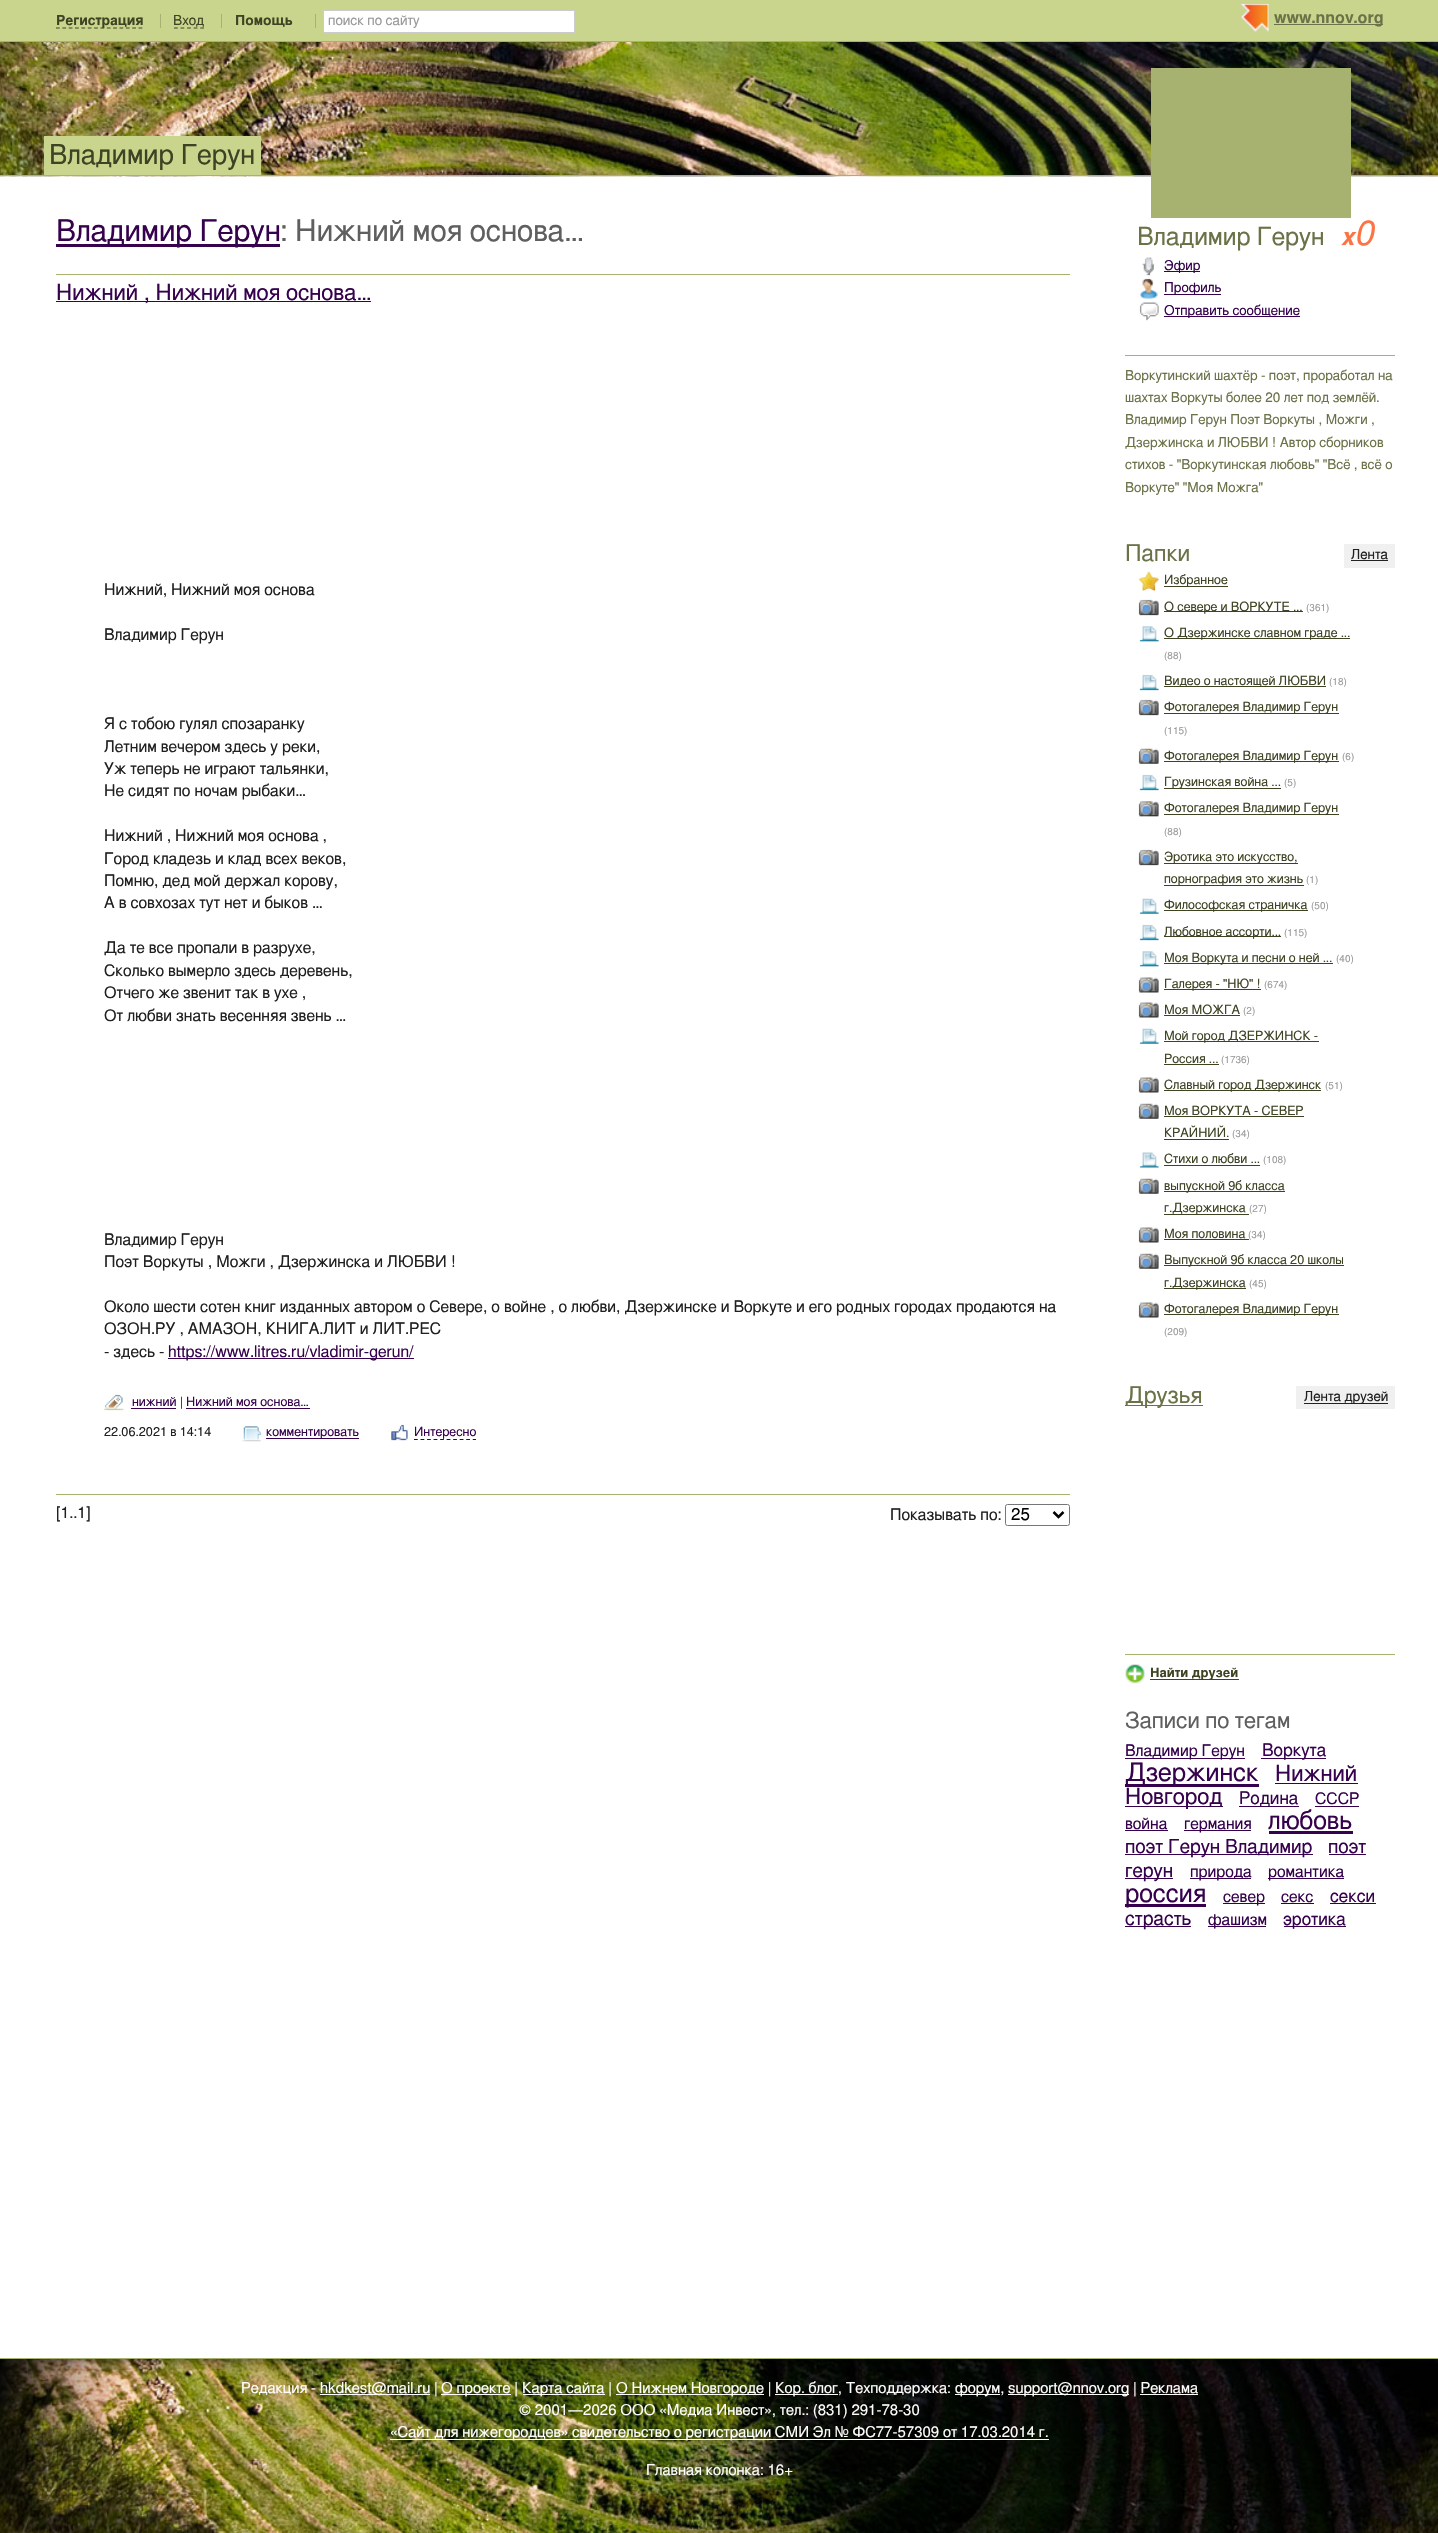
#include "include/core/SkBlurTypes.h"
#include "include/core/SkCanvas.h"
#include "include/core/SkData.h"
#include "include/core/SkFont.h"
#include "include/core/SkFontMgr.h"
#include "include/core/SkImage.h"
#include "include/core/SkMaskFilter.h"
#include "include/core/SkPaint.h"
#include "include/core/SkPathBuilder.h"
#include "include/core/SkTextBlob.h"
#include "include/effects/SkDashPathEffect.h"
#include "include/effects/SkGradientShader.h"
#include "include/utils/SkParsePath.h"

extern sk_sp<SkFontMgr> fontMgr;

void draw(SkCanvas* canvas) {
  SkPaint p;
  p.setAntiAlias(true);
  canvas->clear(SK_ColorWHITE);
  canvas->drawImageRect(SkImages::DeferredFromEncodedData(SkData::MakeFromFileName("images/1.png")), SkRect::MakeLTRB(0, 42, 1438, 177), SkSamplingOptions());
  p.setColor(SkColorSetRGB(168, 178, 112));
  canvas->drawRect(SkRect::MakeLTRB(0, 175, 1438, 176), p);
  p.setColor(SkColorSetRGB(201, 212, 141));
  canvas->drawRect(SkRect::MakeLTRB(0, 0, 1438, 41), p);
  p.setColor(SkColorSetRGB(168, 178, 112));
  canvas->drawRect(SkRect::MakeLTRB(0, 41, 1438, 42), p);
  p.setStyle(SkPaint::kStroke_Style);
  p.setStrokeWidth(1.2f);
  p.setColor(SkColorSetRGB(62, 67, 35));
  p.setPathEffect(SkDashPathEffect::Make({{3.75f, 2.6f}}, 0));
  canvas->drawPath(SkPathBuilder().moveTo(56, 28).lineTo(142.5f, 28).detach(), p);
  p.setPathEffect(nullptr);
  p.setStyle(SkPaint::kFill_Style);
  p.setColor(SkColorSetRGB(168, 178, 112));
  canvas->drawRect(SkRect::MakeLTRB(160, 14, 161, 28), p);
  p.setStyle(SkPaint::kStroke_Style);
  p.setColor(SkColorSetRGB(62, 67, 35));
  p.setPathEffect(SkDashPathEffect::Make({{3.75f, 2.81f}}, 0));
  canvas->drawPath(SkPathBuilder().moveTo(174, 28).lineTo(204, 28).detach(), p);
  p.setPathEffect(nullptr);
  p.setStyle(SkPaint::kFill_Style);
  p.setColor(SkColorSetRGB(168, 178, 112));
  canvas->drawRect(SkRect::MakeLTRB(221, 14, 222, 28), p);
  canvas->drawRect(SkRect::MakeLTRB(315, 14, 316, 28), p);
  p.setColor(SK_ColorWHITE);
  canvas->drawRect(SkRect::MakeLTRB(323.5f, 10.5f, 574.5f, 32.5f), p);
  p.setStyle(SkPaint::kStroke_Style);
  p.setStrokeWidth(1);
  p.setColor(SkColorSetRGB(204, 204, 204));
  canvas->drawRect(SkRect::MakeLTRB(323.5f, 10.5f, 574.5f, 32.5f), p);
  canvas->drawImageRect(SkImages::DeferredFromEncodedData(SkData::MakeFromFileName("images/2.png")), SkRect::MakeLTRB(1240, 3, 1269, 33), SkSamplingOptions());
  p.setStyle(SkPaint::kFill_Style);
  p.setColor(SkColorSetRGB(107, 114, 72));
  canvas->drawRect(SkRect::MakeLTRB(1274, 24, 1383, 25), p);
  p.setColor(SkColorSetRGB(201, 212, 141));
  canvas->drawRect(SkRect::MakeLTRB(44, 136, 261, 175), p);
  p.setColor(SkColorSetRGB(168, 178, 112));
  canvas->drawRect(SkRect::MakeLTRB(1151, 68, 1351, 218), p);
  p.setColor(SkColorSetRGB(54, 2, 77));
  canvas->drawRect(SkRect::MakeLTRB(56, 244, 280, 247), p);
  p.setColor(SkColorSetRGB(168, 178, 112));
  canvas->drawRect(SkRect::MakeLTRB(56, 274, 1070, 275), p);
  p.setColor(SkColorSetRGB(54, 2, 77));
  canvas->drawRect(SkRect::MakeLTRB(56, 301, 371, 302), p);
  canvas->drawRect(SkRect::MakeLTRB(168, 1358, 414, 1359), p);
  canvas->drawImageRect(SkImages::DeferredFromEncodedData(SkData::MakeFromFileName("images/3.png")), SkRect::MakeLTRB(104, 1394, 124, 1411), SkSamplingOptions());
  canvas->drawRect(SkRect::MakeLTRB(131, 1408, 176, 1409), p);
  canvas->drawRect(SkRect::MakeLTRB(186, 1408, 310, 1409), p);
  canvas->drawImageRect(SkImages::DeferredFromEncodedData(SkData::MakeFromFileName("images/4.png")), SkRect::MakeLTRB(242, 1426, 262, 1442), SkSamplingOptions());
  canvas->drawRect(SkRect::MakeLTRB(266, 1438, 359, 1439), p);
  canvas->drawImageRect(SkImages::DeferredFromEncodedData(SkData::MakeFromFileName("images/5.png")), SkRect::MakeLTRB(391, 1424, 408, 1441), SkSamplingOptions());
  p.setStyle(SkPaint::kStroke_Style);
  p.setStrokeWidth(1.2f);
  p.setPathEffect(SkDashPathEffect::Make({{3.75f, 2.78f}}, 0));
  canvas->drawPath(SkPathBuilder().moveTo(414, 1439.5f).lineTo(476, 1439.5f).detach(), p);
  p.setPathEffect(nullptr);
  p.setStyle(SkPaint::kFill_Style);
  p.setColor(SkColorSetRGB(168, 178, 112));
  canvas->drawRect(SkRect::MakeLTRB(56, 1494, 1070, 1495), p);
  p.setStyle(SkPaint::kStroke_Style);
  p.setStrokeWidth(1);
  p.setColor(SkColorSetRGB(118, 118, 118));
  canvas->drawRoundRect(SkRect::MakeLTRB(1005.5f, 1504.5f, 1069.5f, 1525.5f), 2, 2, p);
  p.setStrokeWidth(2.5f);
  p.setColor(SK_ColorBLACK);
  canvas->drawPath(SkPathBuilder().moveTo(1053.5f, 1512).lineTo(1058.5f, 1517).lineTo(1063.5f, 1512).detach(), p);
  canvas->drawImageRect(SkImages::DeferredFromEncodedData(SkData::MakeFromFileName("images/6.png")), SkRect::MakeLTRB(1142, 257, 1155, 276), SkSamplingOptions());
  p.setStyle(SkPaint::kFill_Style);
  p.setColor(SkColorSetRGB(54, 2, 77));
  canvas->drawRect(SkRect::MakeLTRB(1164, 271, 1200, 272), p);
  canvas->drawImageRect(SkImages::DeferredFromEncodedData(SkData::MakeFromFileName("images/7.png")), SkRect::MakeLTRB(1139, 278, 1158, 299), SkSamplingOptions());
  canvas->drawRect(SkRect::MakeLTRB(1164, 294, 1221, 295), p);
  canvas->drawImageRect(SkImages::DeferredFromEncodedData(SkData::MakeFromFileName("images/8.png")), SkRect::MakeLTRB(1139, 302, 1159, 321), SkSamplingOptions());
  canvas->drawRect(SkRect::MakeLTRB(1164, 316, 1300, 317), p);
  p.setColor(SkColorSetRGB(168, 178, 112));
  canvas->drawRect(SkRect::MakeLTRB(1125, 355, 1395, 356), p);
  p.setColor(SkColorSetRGB(240, 240, 240));
  canvas->drawRect(SkRect::MakeLTRB(1344, 544, 1395, 568), p);
  p.setColor(SkColorSetRGB(34, 34, 34));
  canvas->drawRect(SkRect::MakeLTRB(1351, 560, 1388, 561), p);
  canvas->drawImageRect(SkImages::DeferredFromEncodedData(SkData::MakeFromFileName("images/9.png")), SkRect::MakeLTRB(1138, 571, 1159, 591), SkSamplingOptions());
  p.setColor(SkColorSetRGB(62, 67, 35));
  canvas->drawRect(SkRect::MakeLTRB(1164, 586, 1228, 587), p);
  canvas->drawImageRect(SkImages::DeferredFromEncodedData(SkData::MakeFromFileName("images/10.png")), SkRect::MakeLTRB(1138, 599, 1159, 616), SkSamplingOptions());
  canvas->drawRect(SkRect::MakeLTRB(1164, 611, 1303, 612), p);
  canvas->drawImageRect(SkImages::DeferredFromEncodedData(SkData::MakeFromFileName("images/11.png")), SkRect::MakeLTRB(1139, 626, 1159, 642), SkSamplingOptions());
  canvas->drawRect(SkRect::MakeLTRB(1164, 638, 1350, 639), p);
  canvas->drawImageRect(SkImages::DeferredFromEncodedData(SkData::MakeFromFileName("images/12.png")), SkRect::MakeLTRB(1139, 674, 1159, 691), SkSamplingOptions());
  canvas->drawRect(SkRect::MakeLTRB(1164, 686, 1326, 687), p);
  canvas->drawImageRect(SkImages::DeferredFromEncodedData(SkData::MakeFromFileName("images/10.png")), SkRect::MakeLTRB(1138, 699, 1159, 716), SkSamplingOptions());
  canvas->drawRect(SkRect::MakeLTRB(1164, 713, 1339, 714), p);
  canvas->drawImageRect(SkImages::DeferredFromEncodedData(SkData::MakeFromFileName("images/13.png")), SkRect::MakeLTRB(1138, 748, 1159, 764), SkSamplingOptions());
  canvas->drawRect(SkRect::MakeLTRB(1164, 761, 1339, 762), p);
  canvas->drawImageRect(SkImages::DeferredFromEncodedData(SkData::MakeFromFileName("images/14.png")), SkRect::MakeLTRB(1139, 774, 1159, 791), SkSamplingOptions());
  canvas->drawRect(SkRect::MakeLTRB(1164, 788, 1281, 789), p);
  canvas->drawImageRect(SkImages::DeferredFromEncodedData(SkData::MakeFromFileName("images/15.png")), SkRect::MakeLTRB(1138, 801, 1159, 817), SkSamplingOptions());
  canvas->drawRect(SkRect::MakeLTRB(1164, 814, 1339, 815), p);
  canvas->drawImageRect(SkImages::DeferredFromEncodedData(SkData::MakeFromFileName("images/10.png")), SkRect::MakeLTRB(1138, 849, 1159, 866), SkSamplingOptions());
  canvas->drawRect(SkRect::MakeLTRB(1164, 863, 1298, 864), p);
  canvas->drawRect(SkRect::MakeLTRB(1164, 885, 1304, 886), p);
  canvas->drawImageRect(SkImages::DeferredFromEncodedData(SkData::MakeFromFileName("images/16.png")), SkRect::MakeLTRB(1139, 898, 1159, 914), SkSamplingOptions());
  canvas->drawRect(SkRect::MakeLTRB(1164, 910, 1308, 911), p);
  canvas->drawImageRect(SkImages::DeferredFromEncodedData(SkData::MakeFromFileName("images/12.png")), SkRect::MakeLTRB(1139, 924, 1159, 941), SkSamplingOptions());
  canvas->drawRect(SkRect::MakeLTRB(1164, 936, 1281, 937), p);
  canvas->drawImageRect(SkImages::DeferredFromEncodedData(SkData::MakeFromFileName("images/11.png")), SkRect::MakeLTRB(1139, 951, 1159, 967), SkSamplingOptions());
  canvas->drawRect(SkRect::MakeLTRB(1164, 963, 1333, 964), p);
  canvas->drawImageRect(SkImages::DeferredFromEncodedData(SkData::MakeFromFileName("images/17.png")), SkRect::MakeLTRB(1138, 977, 1159, 993), SkSamplingOptions());
  canvas->drawRect(SkRect::MakeLTRB(1164, 989, 1261, 990), p);
  canvas->drawImageRect(SkImages::DeferredFromEncodedData(SkData::MakeFromFileName("images/17.png")), SkRect::MakeLTRB(1138, 1002, 1159, 1018), SkSamplingOptions());
  canvas->drawRect(SkRect::MakeLTRB(1164, 1015, 1240, 1016), p);
  canvas->drawImageRect(SkImages::DeferredFromEncodedData(SkData::MakeFromFileName("images/16.png")), SkRect::MakeLTRB(1139, 1028, 1159, 1044), SkSamplingOptions());
  canvas->drawRect(SkRect::MakeLTRB(1164, 1041, 1319, 1042), p);
  canvas->drawRect(SkRect::MakeLTRB(1164, 1064, 1219, 1065), p);
  canvas->drawImageRect(SkImages::DeferredFromEncodedData(SkData::MakeFromFileName("images/17.png")), SkRect::MakeLTRB(1138, 1077, 1159, 1093), SkSamplingOptions());
  canvas->drawRect(SkRect::MakeLTRB(1164, 1090, 1321, 1091), p);
  canvas->drawImageRect(SkImages::DeferredFromEncodedData(SkData::MakeFromFileName("images/13.png")), SkRect::MakeLTRB(1138, 1103, 1159, 1119), SkSamplingOptions());
  canvas->drawRect(SkRect::MakeLTRB(1164, 1116, 1304, 1117), p);
  canvas->drawRect(SkRect::MakeLTRB(1164, 1139, 1229, 1140), p);
  canvas->drawImageRect(SkImages::DeferredFromEncodedData(SkData::MakeFromFileName("images/18.png")), SkRect::MakeLTRB(1139, 1152, 1159, 1168), SkSamplingOptions());
  canvas->drawRect(SkRect::MakeLTRB(1164, 1165, 1260, 1166), p);
  canvas->drawImageRect(SkImages::DeferredFromEncodedData(SkData::MakeFromFileName("images/13.png")), SkRect::MakeLTRB(1138, 1178, 1159, 1194), SkSamplingOptions());
  canvas->drawRect(SkRect::MakeLTRB(1164, 1191, 1285, 1192), p);
  canvas->drawRect(SkRect::MakeLTRB(1164, 1214, 1249, 1215), p);
  canvas->drawImageRect(SkImages::DeferredFromEncodedData(SkData::MakeFromFileName("images/17.png")), SkRect::MakeLTRB(1138, 1227, 1159, 1243), SkSamplingOptions());
  canvas->drawRect(SkRect::MakeLTRB(1164, 1239, 1249, 1240), p);
  canvas->drawImageRect(SkImages::DeferredFromEncodedData(SkData::MakeFromFileName("images/13.png")), SkRect::MakeLTRB(1138, 1253, 1159, 1269), SkSamplingOptions());
  canvas->drawRect(SkRect::MakeLTRB(1164, 1265, 1344, 1266), p);
  canvas->drawRect(SkRect::MakeLTRB(1164, 1288, 1246, 1289), p);
  canvas->drawImageRect(SkImages::DeferredFromEncodedData(SkData::MakeFromFileName("images/17.png")), SkRect::MakeLTRB(1138, 1302, 1159, 1318), SkSamplingOptions());
  canvas->drawRect(SkRect::MakeLTRB(1164, 1314, 1339, 1315), p);
  p.setColor(SkColorSetRGB(107, 114, 72));
  canvas->drawRect(SkRect::MakeLTRB(1125, 1405, 1203, 1406), p);
  p.setColor(SkColorSetRGB(240, 240, 240));
  canvas->drawRect(SkRect::MakeLTRB(1296, 1386, 1395, 1409), p);
  p.setColor(SkColorSetRGB(34, 34, 34));
  canvas->drawRect(SkRect::MakeLTRB(1304, 1403, 1388, 1404), p);
  p.setColor(SkColorSetRGB(168, 178, 112));
  canvas->drawRect(SkRect::MakeLTRB(1125, 1654, 1395, 1655), p);
  canvas->drawImageRect(SkImages::DeferredFromEncodedData(SkData::MakeFromFileName("images/19.png")), SkRect::MakeLTRB(1125, 1664, 1145, 1684), SkSamplingOptions());
  p.setColor(SkColorSetRGB(62, 67, 35));
  canvas->drawRect(SkRect::MakeLTRB(1150, 1679, 1239, 1680), p);
  p.setColor(SkColorSetRGB(54, 2, 77));
  canvas->drawRect(SkRect::MakeLTRB(1125, 1758, 1245, 1759), p);
  canvas->drawRect(SkRect::MakeLTRB(1261, 1758, 1326, 1759), p);
  canvas->drawRect(SkRect::MakeLTRB(1125, 1784, 1259, 1787), p);
  canvas->drawRect(SkRect::MakeLTRB(1275, 1783, 1358, 1784), p);
  canvas->drawRect(SkRect::MakeLTRB(1125, 1806, 1223, 1807), p);
  canvas->drawRect(SkRect::MakeLTRB(1239, 1806, 1299, 1807), p);
  canvas->drawRect(SkRect::MakeLTRB(1315, 1806, 1359, 1807), p);
  canvas->drawRect(SkRect::MakeLTRB(1125, 1830, 1168, 1831), p);
  canvas->drawRect(SkRect::MakeLTRB(1184, 1830, 1251, 1831), p);
  canvas->drawRect(SkRect::MakeLTRB(1269, 1831, 1353, 1834), p);
  canvas->drawRect(SkRect::MakeLTRB(1125, 1854, 1313, 1855), p);
  canvas->drawRect(SkRect::MakeLTRB(1329, 1854, 1366, 1855), p);
  canvas->drawRect(SkRect::MakeLTRB(1125, 1878, 1173, 1879), p);
  canvas->drawRect(SkRect::MakeLTRB(1190, 1878, 1251, 1879), p);
  canvas->drawRect(SkRect::MakeLTRB(1268, 1878, 1344, 1879), p);
  canvas->drawRect(SkRect::MakeLTRB(1125, 1904, 1206, 1907), p);
  canvas->drawRect(SkRect::MakeLTRB(1223, 1903, 1265, 1904), p);
  canvas->drawRect(SkRect::MakeLTRB(1281, 1903, 1314, 1904), p);
  canvas->drawRect(SkRect::MakeLTRB(1330, 1903, 1376, 1904), p);
  canvas->drawRect(SkRect::MakeLTRB(1125, 1926, 1191, 1927), p);
  canvas->drawRect(SkRect::MakeLTRB(1208, 1926, 1266, 1927), p);
  canvas->drawRect(SkRect::MakeLTRB(1284, 1926, 1346, 1927), p);
  canvas->drawImageRect(SkImages::DeferredFromEncodedData(SkData::MakeFromFileName("images/20.png")), SkRect::MakeLTRB(0, 2359, 1438, 2533), SkSamplingOptions());
  p.setColor(SkColorSetRGB(168, 178, 112));
  canvas->drawRect(SkRect::MakeLTRB(0, 2358, 1438, 2359), p);
  p.setColor(SkColorSetRGB(255, 254, 253));
  canvas->drawRect(SkRect::MakeLTRB(320, 2394, 430, 2395), p);
  canvas->drawRect(SkRect::MakeLTRB(441, 2394, 511, 2395), p);
  canvas->drawRect(SkRect::MakeLTRB(523, 2394, 605, 2395), p);
  canvas->drawRect(SkRect::MakeLTRB(616, 2394, 764, 2395), p);
  canvas->drawRect(SkRect::MakeLTRB(775, 2394, 838, 2395), p);
  canvas->drawRect(SkRect::MakeLTRB(955, 2394, 1000, 2395), p);
  canvas->drawRect(SkRect::MakeLTRB(1008, 2394, 1129, 2395), p);
  canvas->drawRect(SkRect::MakeLTRB(1140, 2394, 1198, 2395), p);
  canvas->drawRect(SkRect::MakeLTRB(390, 2439, 1049, 2440), p);
  SkFont font1(fontMgr->matchFamilyStyle("FreeSans", SkFontStyle(600, SkFontStyle::kNormal_Width, SkFontStyle::kUpright_Slant)), 13.75f);
  font1.setSubpixel(true);
  p.setColor(SkColorSetRGB(62, 67, 35));
  canvas->drawString("Регистрация", 56, 25, font1, p);
  SkFont font2(fontMgr->matchFamilyStyle("FreeSans", SkFontStyle::Normal()), 13.75f);
  font2.setSubpixel(true);
  canvas->drawString("Вход", 173, 25, font2, p);
  canvas->drawString("Помощь", 235, 25, font1, p);
  p.setColor(SkColorSetRGB(153, 153, 153));
  canvas->drawString("поиск по сайту", 328, 25, font2, p);
  SkFont font3(fontMgr->matchFamilyStyle("FreeSans", SkFontStyle(600, SkFontStyle::kNormal_Width, SkFontStyle::kUpright_Slant)), 16);
  font3.setSubpixel(true);
  p.setColor(SkColorSetRGB(107, 114, 72));
  canvas->drawString("www.nnov.org", 1274, 23, font3, p);
  SkFont font4(fontMgr->matchFamilyStyle("FreeSans", SkFontStyle::Normal()), 27.5f);
  font4.setSubpixel(true);
  p.setColor(SkColorSetRGB(62, 67, 35));
  canvas->drawString("Владимир Герун", 49, 164, font4, p);
  SkFont font5(fontMgr->matchFamilyStyle("FreeSans", SkFontStyle::Normal()), 30);
  font5.setSubpixel(true);
  p.setColor(SkColorSetRGB(54, 2, 77));
  canvas->drawString("Владимир Герун", 56, 241, font5, p);
  p.setColor(SkColorSetRGB(95, 95, 95));
  canvas->drawString(": Нижний моя основа…", 280, 241, font5, p);
  SkFont font6(fontMgr->matchFamilyStyle("FreeSans", SkFontStyle::Normal()), 22.4f);
  font6.setSubpixel(true);
  p.setColor(SkColorSetRGB(54, 2, 77));
  canvas->drawString("Нижний , Нижний моя основа…", 56, 300, font6, p);
  SkFont font7(fontMgr->matchFamilyStyle("FreeSans", SkFontStyle::Normal()), 16);
  font7.setSubpixel(true);
  p.setColor(SkColorSetRGB(32, 32, 32));
  canvas->drawString("Нижний, Нижний моя основа", 104, 595, font7, p);
  canvas->drawString("Владимир Герун", 104, 640, font7, p);
  canvas->drawString("Я с тобою гулял спозаранку", 104, 729, font7, p);
  canvas->drawString("Летним вечером здесь у реки,", 104, 752, font7, p);
  canvas->drawString("Уж теперь не играют тальянки,", 104, 774, font7, p);
  canvas->drawString("Не сидят по ночам рыбаки…", 104, 796, font7, p);
  canvas->drawString("Нижний , Нижний моя основа ,", 104, 841, font7, p);
  canvas->drawString("Город кладезь и клад всех веков,", 104, 864, font7, p);
  canvas->drawString("Помню, дед мой держал корову,", 104, 886, font7, p);
  canvas->drawString("А в совхозах тут нет и быков …", 104, 908, font7, p);
  canvas->drawString("Да те все пропали в разрухе,", 104, 953, font7, p);
  canvas->drawString("Сколько вымерло здесь деревень,", 104, 976, font7, p);
  canvas->drawString("Отчего же звенит так в ухе ,", 104, 998, font7, p);
  canvas->drawString("От любви знать весенняя звень …", 104, 1021, font7, p);
  canvas->drawString("Владимир Герун", 104, 1245, font7, p);
  canvas->drawString("Поэт Воркуты , Можги , Дзержинска и ЛЮБВИ !", 104, 1267, font7, p);
  canvas->drawString("Около шести сотен книг изданных автором о Севере, о войне , о любви, Дзержинске и Воркуте и его родных городах продаются на", 104, 1312, font7, p);
  canvas->drawString("ОЗОН.РУ , АМАЗОН, КНИГА.ЛИТ и ЛИТ.РЕС", 104, 1334, font7, p);
  canvas->drawString("- здесь -", 104, 1357, font7, p);
  p.setColor(SkColorSetRGB(54, 2, 77));
  canvas->drawString("https://www.litres.ru/vladimir-gerun/", 168, 1357, font7, p);
  SkFont font8(fontMgr->matchFamilyStyle("FreeSans", SkFontStyle::Normal()), 12.75f);
  font8.setSubpixel(true);
  canvas->drawString("нижний", 132, 1406, font8, p);
  p.setColor(SkColorSetRGB(32, 32, 32));
  canvas->drawString("|", 180, 1406, font8, p);
  p.setColor(SkColorSetRGB(54, 2, 77));
  canvas->drawString("Нижний моя основа…", 186, 1406, font8, p);
  p.setColor(SkColorSetRGB(32, 32, 32));
  canvas->drawString("22.06.2021 в 14:14", 104, 1436, font8, p);
  p.setColor(SkColorSetRGB(54, 2, 77));
  canvas->drawString("комментировать", 266, 1436, font8, p);
  canvas->drawString("Интересно", 414, 1436, font8, p);
  p.setColor(SkColorSetRGB(32, 32, 32));
  canvas->drawString("[1..1]", 56, 1518, font7, p);
  canvas->drawString("Показывать по:", 890, 1520, font7, p);
  SkFont font9(fontMgr->matchFamilyStyle("FreeSans", SkFontStyle::Normal()), 17);
  font9.setSubpixel(true);
  p.setColor(SK_ColorBLACK);
  canvas->drawString("25", 1011, 1520, font9, p);
  SkFont font10(fontMgr->matchFamilyStyle("FreeSans", SkFontStyle::Normal()), 25);
  font10.setSubpixel(true);
  p.setColor(SkColorSetRGB(107, 114, 72));
  canvas->drawString("Владимир Герун", 1137, 245, font10, p);
  SkFont font11(fontMgr->matchFamilyStyle("FreeSans", SkFontStyle(600, SkFontStyle::kNormal_Width, SkFontStyle::kItalic_Slant)), 24);
  font11.setSubpixel(true);
  p.setColor(SkColorSetRGB(252, 116, 69));
  canvas->drawString("x", 1341, 245, font11, p);
  SkFont font12(fontMgr->matchFamilyStyle("FreeSans", SkFontStyle::Italic()), 35);
  font12.setSubpixel(true);
  canvas->drawString("0", 1354, 245, font12, p);
  SkFont font13(fontMgr->matchFamilyStyle("FreeSans", SkFontStyle::Normal()), 13.6f);
  font13.setSubpixel(true);
  p.setColor(SkColorSetRGB(54, 2, 77));
  canvas->drawString("Эфир", 1164, 270, font13, p);
  canvas->drawString("Профиль", 1164, 292, font13, p);
  canvas->drawString("Отправить сообщение", 1164, 315, font13, p);
  p.setColor(SkColorSetRGB(107, 114, 72));
  canvas->drawString("Воркутинский шахтёр - поэт, проработал на", 1125, 380, font13, p);
  canvas->drawString("шахтах Воркуты более 20 лет под землёй.", 1125, 402, font13, p);
  canvas->drawString("Владимир Герун Поэт Воркуты , Можги ,", 1125, 424, font13, p);
  canvas->drawString("Дзержинска и ЛЮБВИ ! Автор сборников", 1125, 447, font13, p);
  canvas->drawString("стихов - \"Воркутинская любовь\" \"Всё , всё о", 1125, 469, font13, p);
  canvas->drawString("Воркуте\" \"Моя Можга\"", 1125, 492, font13, p);
  SkFont font14(fontMgr->matchFamilyStyle("FreeSans", SkFontStyle::Normal()), 23);
  font14.setSubpixel(true);
  canvas->drawString("Папки", 1125, 561, font14, p);
  p.setColor(SkColorSetRGB(32, 32, 32));
  canvas->drawString("Лента", 1351, 559, font2, p);
  p.setColor(SkColorSetRGB(62, 67, 35));
  canvas->drawString("Избранное", 1164, 584, font8, p);
  canvas->drawString("О севере и ВОРКУТЕ ...", 1164, 611, font8, p);
  SkFont font15(fontMgr->matchFamilyStyle("FreeSans", SkFontStyle::Normal()), 10);
  font15.setSubpixel(true);
  p.setColor(SkColorSetRGB(153, 153, 153));
  canvas->drawString("(361)", 1306, 611, font15, p);
  p.setColor(SkColorSetRGB(62, 67, 35));
  canvas->drawString("О Дзержинске славном граде ...", 1164, 637, font8, p);
  p.setColor(SkColorSetRGB(153, 153, 153));
  canvas->drawString("(88)", 1164, 659, font15, p);
  p.setColor(SkColorSetRGB(62, 67, 35));
  canvas->drawString("Видео о настоящей ЛЮБВИ", 1164, 685, font8, p);
  p.setColor(SkColorSetRGB(153, 153, 153));
  canvas->drawString("(18)", 1329, 685, font15, p);
  p.setColor(SkColorSetRGB(62, 67, 35));
  canvas->drawString("Фотогалерея Владимир Герун", 1164, 711, font8, p);
  p.setColor(SkColorSetRGB(153, 153, 153));
  canvas->drawString("(115)", 1164, 734, font15, p);
  p.setColor(SkColorSetRGB(62, 67, 35));
  canvas->drawString("Фотогалерея Владимир Герун", 1164, 760, font8, p);
  p.setColor(SkColorSetRGB(153, 153, 153));
  canvas->drawString("(6)", 1342, 760, font15, p);
  p.setColor(SkColorSetRGB(62, 67, 35));
  canvas->drawString("Грузинская война ...", 1164, 786, font8, p);
  p.setColor(SkColorSetRGB(153, 153, 153));
  canvas->drawString("(5)", 1284, 786, font15, p);
  p.setColor(SkColorSetRGB(62, 67, 35));
  canvas->drawString("Фотогалерея Владимир Герун", 1164, 812, font8, p);
  p.setColor(SkColorSetRGB(153, 153, 153));
  canvas->drawString("(88)", 1164, 835, font15, p);
  p.setColor(SkColorSetRGB(62, 67, 35));
  canvas->drawString("Эротика это искусство,", 1164, 861, font8, p);
  canvas->drawString("порнография это жизнь", 1164, 883, font8, p);
  p.setColor(SkColorSetRGB(153, 153, 153));
  canvas->drawString("(1)", 1306, 883, font15, p);
  p.setColor(SkColorSetRGB(62, 67, 35));
  canvas->drawString("Философская страничка", 1164, 909, font8, p);
  p.setColor(SkColorSetRGB(153, 153, 153));
  canvas->drawString("(50)", 1311, 909, font15, p);
  p.setColor(SkColorSetRGB(62, 67, 35));
  canvas->drawString("Любовное ассорти...", 1164, 936, font8, p);
  p.setColor(SkColorSetRGB(153, 153, 153));
  canvas->drawString("(115)", 1284, 936, font15, p);
  p.setColor(SkColorSetRGB(62, 67, 35));
  canvas->drawString("Моя Воркута и песни о ней ...", 1164, 962, font8, p);
  p.setColor(SkColorSetRGB(153, 153, 153));
  canvas->drawString("(40)", 1336, 962, font15, p);
  p.setColor(SkColorSetRGB(62, 67, 35));
  canvas->drawString("Галерея - \"НЮ\" !", 1164, 988, font8, p);
  p.setColor(SkColorSetRGB(153, 153, 153));
  canvas->drawString("(674)", 1264, 988, font15, p);
  p.setColor(SkColorSetRGB(62, 67, 35));
  canvas->drawString("Моя МОЖГА", 1164, 1014, font8, p);
  p.setColor(SkColorSetRGB(153, 153, 153));
  canvas->drawString("(2)", 1243, 1014, font15, p);
  p.setColor(SkColorSetRGB(62, 67, 35));
  canvas->drawString("Мой город ДЗЕРЖИНСК -", 1164, 1040, font8, p);
  canvas->drawString("Россия ...", 1164, 1063, font8, p);
  p.setColor(SkColorSetRGB(153, 153, 153));
  canvas->drawString("(1736)", 1221, 1063, font15, p);
  p.setColor(SkColorSetRGB(62, 67, 35));
  canvas->drawString("Славный город Дзержинск", 1164, 1089, font8, p);
  p.setColor(SkColorSetRGB(153, 153, 153));
  canvas->drawString("(51)", 1325, 1089, font15, p);
  p.setColor(SkColorSetRGB(62, 67, 35));
  canvas->drawString("Моя ВОРКУТА - СЕВЕР", 1164, 1115, font8, p);
  canvas->drawString("КРАЙНИЙ.", 1164, 1137, font8, p);
  p.setColor(SkColorSetRGB(153, 153, 153));
  canvas->drawString("(34)", 1232, 1137, font15, p);
  p.setColor(SkColorSetRGB(62, 67, 35));
  canvas->drawString("Стихи о любви ...", 1164, 1163, font8, p);
  p.setColor(SkColorSetRGB(153, 153, 153));
  canvas->drawString("(108)", 1263, 1163, font15, p);
  p.setColor(SkColorSetRGB(62, 67, 35));
  canvas->drawString("выпускной 9б класса", 1164, 1190, font8, p);
  canvas->drawString("г.Дзержинска", 1164, 1212, font8, p);
  p.setColor(SkColorSetRGB(153, 153, 153));
  canvas->drawString("(27)", 1249, 1212, font15, p);
  p.setColor(SkColorSetRGB(62, 67, 35));
  canvas->drawString("Моя половина", 1164, 1238, font8, p);
  p.setColor(SkColorSetRGB(153, 153, 153));
  canvas->drawString("(34)", 1248, 1238, font15, p);
  p.setColor(SkColorSetRGB(62, 67, 35));
  canvas->drawString("Выпускной 9б класса 20 школы", 1164, 1264, font8, p);
  canvas->drawString("г.Дзержинска", 1164, 1287, font8, p);
  p.setColor(SkColorSetRGB(153, 153, 153));
  canvas->drawString("(45)", 1249, 1287, font15, p);
  p.setColor(SkColorSetRGB(62, 67, 35));
  canvas->drawString("Фотогалерея Владимир Герун", 1164, 1313, font8, p);
  p.setColor(SkColorSetRGB(153, 153, 153));
  canvas->drawString("(209)", 1164, 1335, font15, p);
  p.setColor(SkColorSetRGB(107, 114, 72));
  canvas->drawString("Друзья", 1125, 1403, font14, p);
  p.setColor(SkColorSetRGB(32, 32, 32));
  canvas->drawString("Лента друзей", 1304, 1401, font2, p);
  SkFont font16(fontMgr->matchFamilyStyle("FreeSans", SkFontStyle(600, SkFontStyle::kNormal_Width, SkFontStyle::kUpright_Slant)), 12.75f);
  font16.setSubpixel(true);
  p.setColor(SkColorSetRGB(62, 67, 35));
  canvas->drawString("Найти друзей", 1150, 1677, font16, p);
  p.setColor(SkColorSetRGB(95, 95, 95));
  canvas->drawString("Записи по тегам", 1125, 1728, font6, p);
  p.setColor(SkColorSetRGB(54, 2, 77));
  canvas->drawString("Владимир Герун", 1125, 1756, font7, p);
  SkFont font17(fontMgr->matchFamilyStyle("FreeSans", SkFontStyle::Normal()), 17.5f);
  font17.setSubpixel(true);
  canvas->drawString("Воркута", 1262, 1756, font17, p);
  SkFont font18(fontMgr->matchFamilyStyle("FreeSans", SkFontStyle::Normal()), 25.5f);
  font18.setSubpixel(true);
  canvas->drawString("Дзержинск", 1125, 1781, font18, p);
  canvas->drawString("Нижний", 1275, 1781, font6, p);
  canvas->drawString("Новгород", 1125, 1804, font6, p);
  canvas->drawString("Родина", 1239, 1804, font17, p);
  canvas->drawString("СССР", 1315, 1804, font7, p);
  canvas->drawString("война", 1125, 1829, font7, p);
  canvas->drawString("германия", 1184, 1829, font7, p);
  canvas->drawString("любовь", 1268, 1829, font18, p);
  SkFont font19(fontMgr->matchFamilyStyle("FreeSans", SkFontStyle::Normal()), 19.25f);
  font19.setSubpixel(true);
  canvas->drawString("поэт Герун Владимир", 1125, 1853, font19, p);
  canvas->drawString("поэт", 1328, 1853, font19, p);
  canvas->drawString("герун", 1125, 1877, font19, p);
  canvas->drawString("природа", 1190, 1877, font7, p);
  canvas->drawString("романтика", 1268, 1877, font7, p);
  canvas->drawString("россия", 1125, 1902, font18, p);
  canvas->drawString("север", 1223, 1902, font7, p);
  canvas->drawString("секс", 1281, 1902, font7, p);
  canvas->drawString("секси", 1330, 1902, font17, p);
  canvas->drawString("страсть", 1125, 1925, font19, p);
  canvas->drawString("фашизм", 1208, 1925, font7, p);
  canvas->drawString("эротика", 1283, 1925, font17, p);
  SkFont font20(fontMgr->matchFamilyStyle("FreeSans", SkFontStyle::Normal()), 15);
  font20.setSubpixel(true);
  p.setColor(SkColorSetRGB(255, 254, 253));
  canvas->drawString("Редакция -", 241, 2393, font20, p);
  canvas->drawString("hkdkest@mail.ru |", 320, 2393, font20, p);
  canvas->drawString("О проекте |", 441, 2393, font20, p);
  canvas->drawString("Карта сайта |", 522, 2393, font20, p);
  canvas->drawString("О Нижнем Новгороде |", 616, 2393, font20, p);
  canvas->drawString("Кор. блог, Техподдержка:", 775, 2393, font20, p);
  canvas->drawString("форум,", 955, 2393, font20, p);
  canvas->drawString("support@nnov.org | Реклама", 1008, 2393, font20, p);
  canvas->drawString("© 2001—2026 ООО «Медиа Инвест», тел.: (831) 291-78-30", 519, 2415, font20, p);
  canvas->drawString("«Сайт для нижегородцев» свидетельство о регистрации СМИ Эл № ФС77-57309 от 17.03.2014 г.", 390, 2437, font20, p);
  canvas->drawString("Главная колонка: 16+", 646, 2475, font20, p);
}
